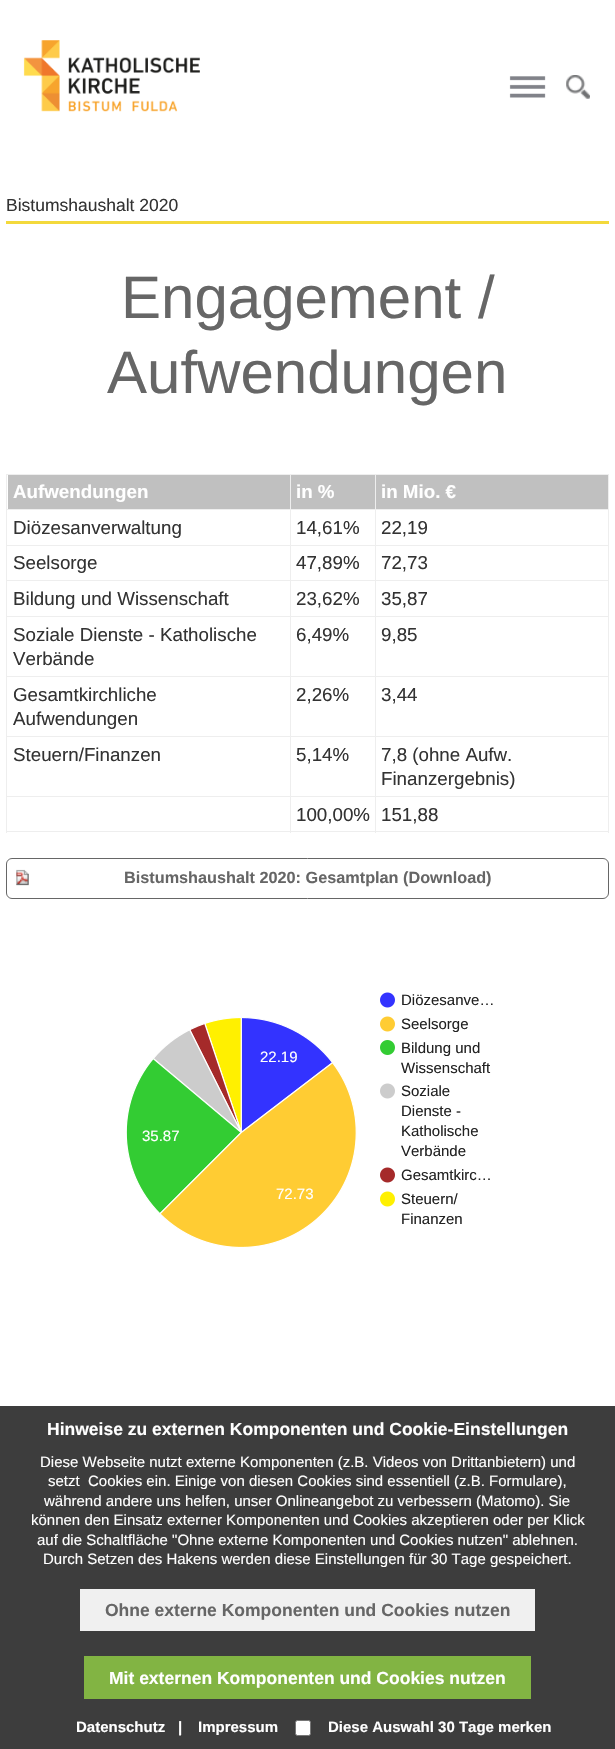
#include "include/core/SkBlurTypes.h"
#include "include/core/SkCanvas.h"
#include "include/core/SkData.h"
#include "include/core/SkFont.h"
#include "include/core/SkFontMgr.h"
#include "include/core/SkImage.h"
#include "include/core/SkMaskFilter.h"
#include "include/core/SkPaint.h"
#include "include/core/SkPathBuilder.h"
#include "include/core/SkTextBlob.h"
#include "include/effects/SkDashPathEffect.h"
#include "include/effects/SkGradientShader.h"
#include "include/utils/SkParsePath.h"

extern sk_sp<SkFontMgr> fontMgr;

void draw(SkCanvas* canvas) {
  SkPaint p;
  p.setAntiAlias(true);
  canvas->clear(SK_ColorWHITE);
  canvas->drawImageRect(SkImages::DeferredFromEncodedData(SkData::MakeFromFileName("images/1.png")), SkRect::MakeLTRB(23, 40, 200, 112), SkSamplingOptions());
  canvas->drawImageRect(SkImages::DeferredFromEncodedData(SkData::MakeFromFileName("images/2.png")), SkRect::MakeLTRB(509, 76, 546, 98), SkSamplingOptions());
  canvas->drawImageRect(SkImages::DeferredFromEncodedData(SkData::MakeFromFileName("images/3.png")), SkRect::MakeLTRB(566, 75, 590, 99), SkSamplingOptions());
  p.setColor(SkColorSetRGB(243, 217, 60));
  canvas->drawRect(SkRect::MakeLTRB(6, 221, 609, 224), p);
  p.setColor(SkColorSetRGB(238, 238, 238));
  canvas->drawRect(SkRect::MakeLTRB(6, 474, 609, 475), p);
  canvas->drawRect(SkRect::MakeLTRB(6, 474, 7, 833), p);
  p.setColor(SkColorSetRGB(192, 192, 192));
  canvas->drawRect(SkRect::MakeLTRB(8, 475, 290, 509), p);
  p.setColor(SkColorSetRGB(238, 238, 238));
  canvas->drawRect(SkRect::MakeLTRB(608, 474, 609, 833), p);
  canvas->drawRect(SkRect::MakeLTRB(375, 831, 609, 832), p);
  canvas->drawRect(SkRect::MakeLTRB(375, 796, 376, 833), p);
  canvas->drawRect(SkRect::MakeLTRB(375, 796, 609, 797), p);
  canvas->drawRect(SkRect::MakeLTRB(375, 736, 376, 798), p);
  canvas->drawRect(SkRect::MakeLTRB(375, 736, 609, 737), p);
  canvas->drawRect(SkRect::MakeLTRB(375, 676, 376, 738), p);
  canvas->drawRect(SkRect::MakeLTRB(375, 676, 609, 677), p);
  canvas->drawRect(SkRect::MakeLTRB(375, 616, 376, 678), p);
  canvas->drawRect(SkRect::MakeLTRB(375, 616, 609, 617), p);
  canvas->drawRect(SkRect::MakeLTRB(375, 580, 376, 618), p);
  canvas->drawRect(SkRect::MakeLTRB(375, 580, 609, 581), p);
  canvas->drawRect(SkRect::MakeLTRB(375, 545, 376, 581), p);
  canvas->drawRect(SkRect::MakeLTRB(375, 545, 609, 546), p);
  canvas->drawRect(SkRect::MakeLTRB(375, 509, 376, 546), p);
  canvas->drawRect(SkRect::MakeLTRB(375, 509, 609, 510), p);
  canvas->drawRect(SkRect::MakeLTRB(375, 474, 376, 510), p);
  canvas->drawRect(SkRect::MakeLTRB(290, 831, 376, 832), p);
  canvas->drawRect(SkRect::MakeLTRB(290, 796, 291, 833), p);
  canvas->drawRect(SkRect::MakeLTRB(290, 796, 376, 797), p);
  canvas->drawRect(SkRect::MakeLTRB(290, 736, 291, 798), p);
  canvas->drawRect(SkRect::MakeLTRB(290, 736, 376, 737), p);
  canvas->drawRect(SkRect::MakeLTRB(290, 676, 291, 738), p);
  canvas->drawRect(SkRect::MakeLTRB(290, 676, 376, 677), p);
  canvas->drawRect(SkRect::MakeLTRB(290, 616, 291, 678), p);
  canvas->drawRect(SkRect::MakeLTRB(290, 616, 376, 617), p);
  canvas->drawRect(SkRect::MakeLTRB(290, 580, 291, 618), p);
  canvas->drawRect(SkRect::MakeLTRB(290, 580, 376, 581), p);
  canvas->drawRect(SkRect::MakeLTRB(290, 545, 291, 581), p);
  canvas->drawRect(SkRect::MakeLTRB(290, 545, 376, 546), p);
  canvas->drawRect(SkRect::MakeLTRB(290, 509, 291, 546), p);
  canvas->drawRect(SkRect::MakeLTRB(290, 509, 376, 510), p);
  canvas->drawRect(SkRect::MakeLTRB(290, 474, 291, 510), p);
  canvas->drawRect(SkRect::MakeLTRB(6, 509, 291, 510), p);
  p.setColor(SkColorSetRGB(192, 192, 192));
  canvas->drawRect(SkRect::MakeLTRB(291, 475, 375, 509), p);
  canvas->drawRect(SkRect::MakeLTRB(376, 475, 608, 509), p);
  p.setColor(SkColorSetRGB(238, 238, 238));
  canvas->drawRect(SkRect::MakeLTRB(6, 545, 291, 546), p);
  canvas->drawRect(SkRect::MakeLTRB(6, 580, 291, 581), p);
  canvas->drawRect(SkRect::MakeLTRB(6, 616, 291, 617), p);
  canvas->drawRect(SkRect::MakeLTRB(6, 676, 291, 677), p);
  canvas->drawRect(SkRect::MakeLTRB(6, 736, 291, 737), p);
  canvas->drawRect(SkRect::MakeLTRB(6, 796, 291, 797), p);
  canvas->drawRect(SkRect::MakeLTRB(6, 831, 291, 832), p);
  canvas->drawImageRect(SkImages::DeferredFromEncodedData(SkData::MakeFromFileName("images/4.png")), SkRect::MakeLTRB(16, 869, 29, 886), SkSamplingOptions());
  p.setStyle(SkPaint::kStroke_Style);
  p.setStrokeWidth(1);
  p.setColor(SkColorSetRGB(102, 102, 102));
  canvas->drawRoundRect(SkRect::MakeLTRB(6.5f, 858.5f, 608.5f, 898.5f), 5.5f, 5.5f, p);
  canvas->drawImageRect(SkImages::DeferredFromEncodedData(SkData::MakeFromFileName("images/5.png")), SkRect::MakeLTRB(126, 992, 395, 1248), SkSamplingOptions());
  p.setStyle(SkPaint::kFill_Style);
  p.setColor(SkColorSetRGB(61, 61, 61));
  canvas->drawRect(SkRect::MakeLTRB(0, 1406, 615, 1749), p);
  p.setColor(SkColorSetRGB(240, 240, 240));
  canvas->drawRect(SkRect::MakeLTRB(80, 1589, 535, 1631), p);
  p.setColor(SkColorSetRGB(130, 180, 67));
  canvas->drawRect(SkRect::MakeLTRB(84, 1656, 531, 1699), p);
  p.setColor(SK_ColorWHITE);
  canvas->drawRoundRect(SkRect::MakeLTRB(295.5f, 1720.5f, 310.5f, 1735.5f), 2, 2, p);
  p.setStyle(SkPaint::kStroke_Style);
  p.setColor(SkColorSetRGB(118, 118, 118));
  canvas->drawRoundRect(SkRect::MakeLTRB(295.5f, 1720.5f, 310.5f, 1735.5f), 2, 2, p);
  SkFont font1(fontMgr->matchFamilyStyle("Liberation Sans", SkFontStyle::Normal()), 17.5f);
  font1.setSubpixel(true);
  p.setStyle(SkPaint::kFill_Style);
  p.setColor(SkColorSetRGB(51, 51, 51));
  canvas->drawString("Bistumshaushalt 2020", 6, 211, font1, p);
  SkFont font2(fontMgr->matchFamilyStyle("Liberation Sans", SkFontStyle::Normal()), 60);
  font2.setSubpixel(true);
  p.setColor(SkColorSetRGB(102, 102, 102));
  canvas->drawString("Engagement /", 121, 318, font2, p);
  canvas->drawString("Aufwendungen", 107, 393, font2, p);
  SkFont font3(fontMgr->matchFamilyStyle("Liberation Sans", SkFontStyle::Bold()), 18.75f);
  font3.setSubpixel(true);
  p.setColor(SK_ColorWHITE);
  canvas->drawString("Aufwendungen", 13, 498, font3, p);
  canvas->drawString("in %", 296, 498, font3, p);
  canvas->drawString("in Mio. €", 381, 498, font3, p);
  SkFont font4(fontMgr->matchFamilyStyle("Liberation Sans", SkFontStyle::Normal()), 18.75f);
  font4.setSubpixel(true);
  p.setColor(SkColorSetRGB(51, 51, 51));
  canvas->drawString("Diözesanverwaltung", 13, 534, font4, p);
  canvas->drawString("14,61%", 296, 534, font4, p);
  canvas->drawString("22,19", 381, 534, font4, p);
  canvas->drawString("Seelsorge", 13, 569, font4, p);
  canvas->drawString("47,89%", 296, 569, font4, p);
  canvas->drawString("72,73", 381, 569, font4, p);
  canvas->drawString("Bildung und Wissenschaft", 13, 605, font4, p);
  canvas->drawString("23,62%", 296, 605, font4, p);
  canvas->drawString("35,87", 381, 605, font4, p);
  canvas->drawString("Soziale Dienste - Katholische", 13, 641, font4, p);
  canvas->drawString("Verbände", 13, 665, font4, p);
  canvas->drawString("6,49%", 296, 641, font4, p);
  canvas->drawString("9,85", 381, 641, font4, p);
  canvas->drawString("Gesamtkirchliche", 13, 701, font4, p);
  canvas->drawString("Aufwendungen", 13, 725, font4, p);
  canvas->drawString("2,26%", 296, 701, font4, p);
  canvas->drawString("3,44", 381, 701, font4, p);
  canvas->drawString("Steuern/Finanzen", 13, 761, font4, p);
  canvas->drawString("5,14%", 296, 761, font4, p);
  canvas->drawString("7,8 (ohne Aufw.", 381, 761, font4, p);
  canvas->drawString("Finanzergebnis)", 381, 785, font4, p);
  canvas->drawString("100,00%", 296, 821, font4, p);
  canvas->drawString("151,88", 381, 821, font4, p);
  SkFont font5(fontMgr->matchFamilyStyle("Liberation Sans", SkFontStyle::Bold()), 16.25f);
  font5.setSubpixel(true);
  p.setColor(SkColorSetRGB(102, 102, 102));
  canvas->drawString("Bistumshaushalt 2020: Gesamtplan (Download)", 124, 883, font5, p);
  SkFont font6(fontMgr->matchFamilyStyle("Liberation Sans", SkFontStyle::Normal()), 15);
  font6.setSubpixel(true);
  p.setColor(SkColorSetRGB(34, 34, 34));
  canvas->drawString("Diözesanve…", 401, 1005, font6, p);
  canvas->drawString("Seelsorge", 401, 1029, font6, p);
  p.setColor(SK_ColorWHITE);
  canvas->drawString("22.19", 260, 1062, font6, p);
  p.setColor(SkColorSetRGB(34, 34, 34));
  canvas->drawString("Bildung und", 401, 1053, font6, p);
  canvas->drawString("Wissenschaft", 401, 1073, font6, p);
  canvas->drawString("Soziale", 401, 1096, font6, p);
  canvas->drawString("Dienste -", 401, 1116, font6, p);
  p.setColor(SK_ColorWHITE);
  canvas->drawString("35.87", 142, 1141, font6, p);
  p.setColor(SkColorSetRGB(34, 34, 34));
  canvas->drawString("Katholische", 401, 1136, font6, p);
  canvas->drawString("Verbände", 401, 1156, font6, p);
  canvas->drawString("Gesamtkirc…", 401, 1180, font6, p);
  p.setColor(SK_ColorWHITE);
  canvas->drawString("72.73", 276, 1199, font6, p);
  p.setColor(SkColorSetRGB(34, 34, 34));
  canvas->drawString("Steuern/", 401, 1204, font6, p);
  canvas->drawString("Finanzen", 401, 1224, font6, p);
  SkFont font7(fontMgr->matchFamilyStyle("Liberation Sans", SkFontStyle::Bold()), 17.5f);
  font7.setSubpixel(true);
  p.setColor(SK_ColorWHITE);
  canvas->drawString("Hinweise zu externen Komponenten und Cookie-Einstellungen", 47, 1435, font7, p);
  canvas->drawString("Diese Webseite nutzt externe Komponenten (z.B. Videos von Drittanbietern) und", 40, 1467, font6, p);
  canvas->drawString("setzt  Cookies ein. Einige von diesen Cookies sind essentiell (z.B. Formulare),", 48, 1486, font6, p);
  canvas->drawString("während andere uns helfen, unser Onlineangebot zu verbessern (Matomo). Sie", 44, 1506, font6, p);
  canvas->drawString("können den Einsatz externer Komponenten und Cookies akzeptieren oder per Klick", 31, 1525, font6, p);
  canvas->drawString("auf die Schaltfläche \"Ohne externe Komponenten und Cookies nutzen\" ablehnen.", 37, 1545, font6, p);
  canvas->drawString("Durch Setzen des Hakens werden diese Einstellungen für 30 Tage gespeichert.", 43, 1564, font6, p);
  p.setColor(SkColorSetRGB(102, 102, 102));
  canvas->drawString("Ohne externe Komponenten und Cookies nutzen", 105, 1616, font7, p);
  p.setColor(SK_ColorWHITE);
  canvas->drawString("Mit externen Komponenten und Cookies nutzen", 109, 1684, font7, p);
  SkFont font8(fontMgr->matchFamilyStyle("Liberation Sans", SkFontStyle::Bold()), 15);
  font8.setSubpixel(true);
  canvas->drawString("Datenschutz", 76, 1732, font8, p);
  canvas->drawString("|", 178, 1732, font8, p);
  canvas->drawString("Impressum", 198, 1732, font8, p);
  canvas->drawString("Diese Auswahl 30 Tage merken", 328, 1732, font8, p);
}
